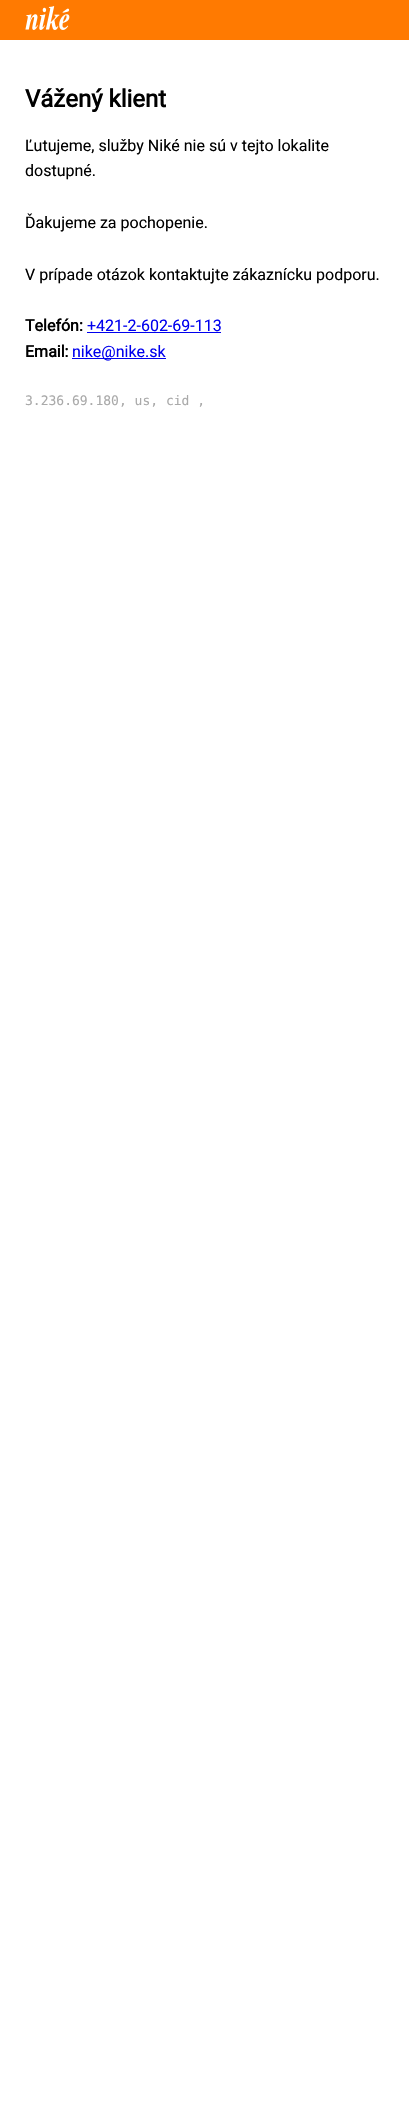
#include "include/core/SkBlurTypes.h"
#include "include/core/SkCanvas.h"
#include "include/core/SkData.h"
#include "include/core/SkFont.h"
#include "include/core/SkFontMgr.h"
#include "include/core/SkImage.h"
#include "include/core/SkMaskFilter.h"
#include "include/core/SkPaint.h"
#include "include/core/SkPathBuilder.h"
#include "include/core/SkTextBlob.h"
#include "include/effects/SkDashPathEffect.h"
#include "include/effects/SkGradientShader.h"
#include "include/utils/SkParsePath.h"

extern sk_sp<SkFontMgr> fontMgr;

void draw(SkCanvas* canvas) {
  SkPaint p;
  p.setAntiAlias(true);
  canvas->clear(SK_ColorWHITE);
  p.setColor(SkColorSetRGB(255, 122, 1));
  canvas->drawRect(SkRect::MakeLTRB(0, 0, 409, 40), p);
  canvas->drawImageRect(SkImages::DeferredFromEncodedData(SkData::MakeFromFileName("images/1.png")), SkRect::MakeLTRB(25, 6, 70, 30), SkSamplingOptions());
  p.setColor(SkColorSetRGB(0, 0, 238));
  canvas->drawRect(SkRect::MakeLTRB(87, 332, 221, 333), p);
  canvas->drawRect(SkRect::MakeLTRB(72, 358, 166, 359), p);
  SkFont font1(fontMgr->matchFamilyStyle("Roboto", SkFontStyle::Bold()), 24);
  font1.setSubpixel(true);
  p.setColor(SK_ColorBLACK);
  canvas->drawString("Vážený klient", 25, 107, font1, p);
  SkFont font2(fontMgr->matchFamilyStyle("Roboto", SkFontStyle::Normal()), 16);
  font2.setSubpixel(true);
  canvas->drawString("Ľutujeme, služby Niké nie sú v tejto lokalite", 25, 151, font2, p);
  canvas->drawString("dostupné.", 25, 176, font2, p);
  canvas->drawString("Ďakujeme za pochopenie.", 25, 228, font2, p);
  canvas->drawString("V prípade otázok kontaktujte zákaznícku podporu.", 25, 280, font2, p);
  SkFont font3(fontMgr->matchFamilyStyle("Roboto", SkFontStyle::Bold()), 16);
  font3.setSubpixel(true);
  canvas->drawString("Telefón:", 25, 331, font3, p);
  p.setColor(SkColorSetRGB(0, 0, 238));
  canvas->drawString("+421-2-602-69-113", 87, 331, font2, p);
  p.setColor(SK_ColorBLACK);
  canvas->drawString("Email:", 25, 357, font3, p);
  p.setColor(SkColorSetRGB(0, 0, 238));
  canvas->drawString("nike@nike.sk", 72, 357, font2, p);
  SkFont font4(fontMgr->matchFamilyStyle("DejaVu Sans Mono", SkFontStyle::Normal()), 13);
  font4.setSubpixel(true);
  p.setColor(SkColorSetRGB(170, 170, 170));
  canvas->drawString("3.236.69.180, us, cid ,", 25, 405, font4, p);
}
